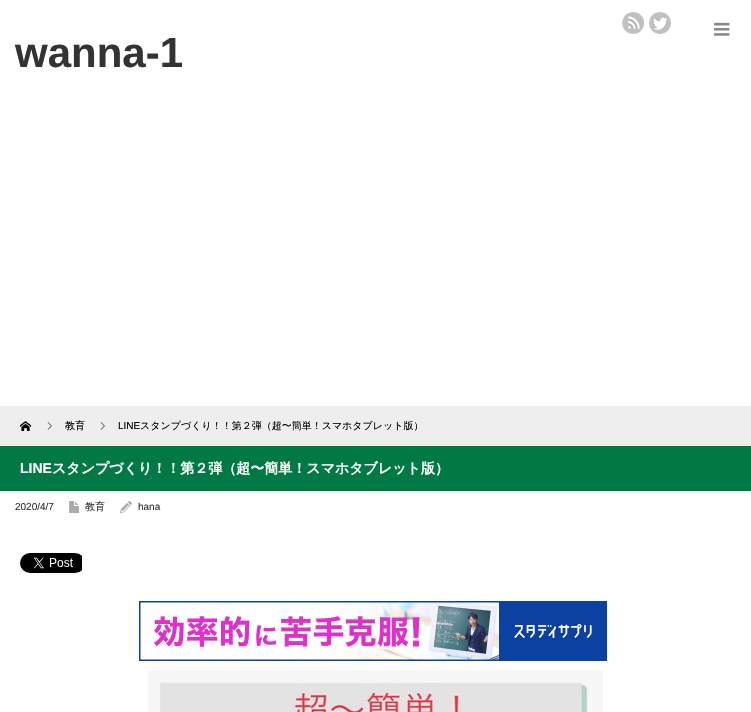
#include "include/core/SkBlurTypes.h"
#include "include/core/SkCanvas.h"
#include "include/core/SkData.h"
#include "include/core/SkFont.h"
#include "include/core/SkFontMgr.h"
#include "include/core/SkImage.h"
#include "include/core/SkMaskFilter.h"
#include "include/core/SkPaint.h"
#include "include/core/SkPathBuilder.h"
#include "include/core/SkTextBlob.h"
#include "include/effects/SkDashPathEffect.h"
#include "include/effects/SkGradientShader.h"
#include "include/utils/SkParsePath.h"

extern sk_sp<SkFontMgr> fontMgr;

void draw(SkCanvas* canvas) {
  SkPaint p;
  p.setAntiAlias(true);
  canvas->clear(SK_ColorWHITE);
  canvas->drawImageRect(SkImages::DeferredFromEncodedData(SkData::MakeFromFileName("images/1.png")), SkRect::MakeLTRB(622, 12, 644, 34), SkSamplingOptions());
  canvas->drawImageRect(SkImages::DeferredFromEncodedData(SkData::MakeFromFileName("images/2.png")), SkRect::MakeLTRB(649, 12, 671, 34), SkSamplingOptions());
  canvas->drawImageRect(SkImages::DeferredFromEncodedData(SkData::MakeFromFileName("images/3.png")), SkRect::MakeLTRB(714, 22, 730, 36), SkSamplingOptions());
  p.setColor(SkColorSetRGB(238, 238, 238));
  canvas->drawRect(SkRect::MakeLTRB(0, 406, 751, 446), p);
  canvas->drawImageRect(SkImages::DeferredFromEncodedData(SkData::MakeFromFileName("images/4.png")), SkRect::MakeLTRB(20, 421, 31, 431), SkSamplingOptions());
  canvas->drawImageRect(SkImages::DeferredFromEncodedData(SkData::MakeFromFileName("images/5.png")), SkRect::MakeLTRB(47, 422, 52, 430), SkSamplingOptions());
  canvas->drawImageRect(SkImages::DeferredFromEncodedData(SkData::MakeFromFileName("images/5.png")), SkRect::MakeLTRB(100, 422, 105, 430), SkSamplingOptions());
  p.setColor(SkColorSetRGB(0, 121, 68));
  canvas->drawRect(SkRect::MakeLTRB(0, 446, 751, 491), p);
  canvas->drawImageRect(SkImages::DeferredFromEncodedData(SkData::MakeFromFileName("images/6.png")), SkRect::MakeLTRB(69, 501, 79, 513), SkSamplingOptions());
  canvas->drawImageRect(SkImages::DeferredFromEncodedData(SkData::MakeFromFileName("images/7.png")), SkRect::MakeLTRB(120, 501, 132, 513), SkSamplingOptions());
  canvas->drawImageRect(SkImages::DeferredFromEncodedData(SkData::MakeFromFileName("images/8.png")), SkRect::MakeLTRB(20, 553, 82, 573), SkSamplingOptions());
  canvas->drawImageRect(SkImages::DeferredFromEncodedData(SkData::MakeFromFileName("images/9.png")), SkRect::MakeLTRB(139, 601, 607, 661), SkSamplingOptions());
  canvas->drawImageRect(SkImages::DeferredFromEncodedData(SkData::MakeFromFileName("images/10.png")), SkRect::MakeLTRB(148, 670, 603, 712), SkSamplingOptions());
  SkFont font1(fontMgr->matchFamilyStyle("Liberation Sans", SkFontStyle::Bold()), 42);
  font1.setSubpixel(true);
  p.setColor(SkColorSetRGB(51, 51, 51));
  canvas->drawString("wanna-1", 15, 67, font1, p);
  SkFont font2(fontMgr->matchFamilyStyle("WenQuanYi Zen Hei", SkFontStyle(500, SkFontStyle::kNormal_Width, SkFontStyle::kUpright_Slant)), 10);
  font2.setSubpixel(true);
  p.setColor(SK_ColorBLACK);
  canvas->drawString("教育", 65, 429, font2, p);
  SkFont font3(fontMgr->matchFamilyStyle("Liberation Sans", SkFontStyle::Normal()), 10);
  font3.setSubpixel(true);
  canvas->drawString("LINE", 118, 429, font3, p);
  canvas->drawString("スタンプづくり！！第２弾（超〜簡単！スマホタブレット版）", 140, 429, font2, p);
  SkFont font4(fontMgr->matchFamilyStyle("Liberation Sans", SkFontStyle::Bold()), 14);
  font4.setSubpixel(true);
  p.setColor(SK_ColorWHITE);
  canvas->drawString("LINE", 20, 473, font4, p);
  SkFont font5(fontMgr->matchFamilyStyle("WenQuanYi Zen Hei", SkFontStyle::Bold()), 14);
  font5.setSubpixel(true);
  canvas->drawString("スタンプづくり！！第２弾（超〜簡単！スマホタブレット版）", 52, 473, font5, p);
  p.setColor(SkColorSetRGB(51, 51, 51));
  canvas->drawString("2020/4/7", 15, 510, font3, p);
  canvas->drawString("教育", 85, 510, font2, p);
  canvas->drawString("hana", 138, 510, font3, p);
}
